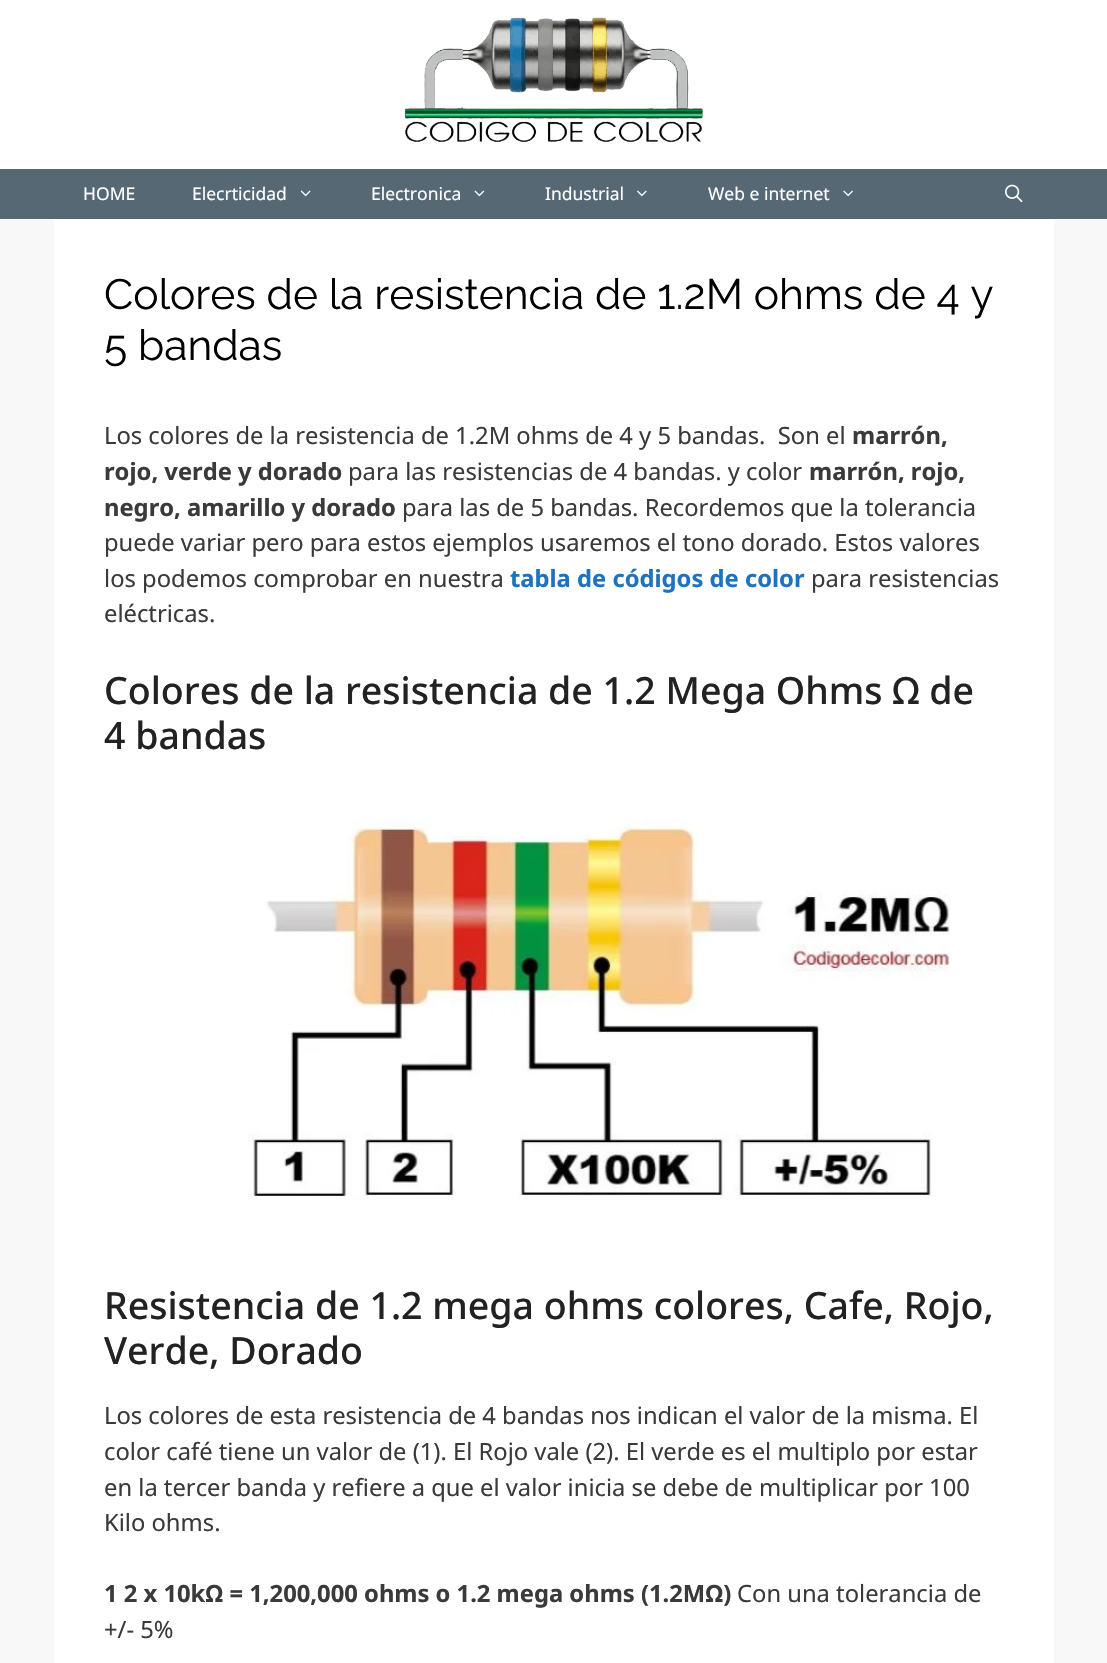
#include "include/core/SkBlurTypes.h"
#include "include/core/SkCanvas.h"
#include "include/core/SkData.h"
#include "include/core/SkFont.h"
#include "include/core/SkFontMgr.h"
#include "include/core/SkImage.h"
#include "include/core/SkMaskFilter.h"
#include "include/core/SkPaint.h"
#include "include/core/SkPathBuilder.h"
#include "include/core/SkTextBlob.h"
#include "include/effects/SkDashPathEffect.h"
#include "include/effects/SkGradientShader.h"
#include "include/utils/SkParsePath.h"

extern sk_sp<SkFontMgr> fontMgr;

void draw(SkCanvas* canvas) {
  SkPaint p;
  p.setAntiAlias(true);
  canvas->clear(SkColorSetRGB(248, 248, 248));
  p.setColor(SK_ColorWHITE);
  canvas->drawRect(SkRect::MakeLTRB(0, 0, 1107, 169), p);
  canvas->drawImageRect(SkImages::DeferredFromEncodedData(SkData::MakeFromFileName("images/1.png")), SkRect::MakeLTRB(404, 17, 703, 142), SkSamplingOptions());
  p.setColor(SkColorSetRGB(85, 104, 116));
  canvas->drawRect(SkRect::MakeLTRB(0, 169, 1107, 219), p);
  canvas->drawImageRect(SkImages::DeferredFromEncodedData(SkData::MakeFromFileName("images/2.png")), SkRect::MakeLTRB(300, 190, 311, 197), SkSamplingOptions());
  canvas->drawImageRect(SkImages::DeferredFromEncodedData(SkData::MakeFromFileName("images/3.png")), SkRect::MakeLTRB(474, 190, 485, 197), SkSamplingOptions());
  canvas->drawImageRect(SkImages::DeferredFromEncodedData(SkData::MakeFromFileName("images/4.png")), SkRect::MakeLTRB(637, 190, 647, 197), SkSamplingOptions());
  canvas->drawImageRect(SkImages::DeferredFromEncodedData(SkData::MakeFromFileName("images/5.png")), SkRect::MakeLTRB(843, 190, 853, 197), SkSamplingOptions());
  canvas->drawImageRect(SkImages::DeferredFromEncodedData(SkData::MakeFromFileName("images/6.png")), SkRect::MakeLTRB(1005, 184, 1023, 203), SkSamplingOptions());
  p.setColor(SK_ColorWHITE);
  canvas->drawRect(SkRect::MakeLTRB(54, 219, 1054, 1663), p);
  canvas->drawImageRect(SkImages::DeferredFromEncodedData(SkData::MakeFromFileName("images/7.png")), SkRect::MakeLTRB(248, 818, 950, 1200), SkSamplingOptions());
  SkFont font1(fontMgr->matchFamilyStyle("Noto Sans", SkFontStyle::Normal()), 17.5f);
  font1.setSubpixel(true);
  canvas->drawString("HOME", 83, 200, font1, p);
  canvas->drawString("Elecrticidad", 192, 200, font1, p);
  canvas->drawString("Electronica", 371, 200, font1, p);
  canvas->drawString("Industrial", 545, 200, font1, p);
  canvas->drawString("Web e internet", 708, 200, font1, p);
  SkFont font2(fontMgr->matchFamilyStyle("Raleway", SkFontStyle::Normal()), 42.5f);
  font2.setSubpixel(true);
  p.setColor(SK_ColorBLACK);
  canvas->drawString("Colores de la resistencia de 1.2M ohms de 4 y", 104, 309, font2, p);
  canvas->drawString("5 bandas", 104, 360, font2, p);
  SkFont font3(fontMgr->matchFamilyStyle("Noto Sans", SkFontStyle::Normal()), 23.75f);
  font3.setSubpixel(true);
  p.setColor(SkColorSetRGB(58, 58, 58));
  canvas->drawString("Los colores de la resistencia de 1.2M ohms de 4 y 5 bandas.  Son el", 104, 444, font3, p);
  SkFont font4(fontMgr->matchFamilyStyle("Noto Sans", SkFontStyle::Bold()), 23.75f);
  font4.setSubpixel(true);
  canvas->drawString("marrón,", 852, 444, font4, p);
  canvas->drawString("rojo, verde y dorado", 104, 480, font4, p);
  canvas->drawString("para las resistencias de 4 bandas. y color", 348, 480, font3, p);
  canvas->drawString("marrón, rojo,", 809, 480, font4, p);
  canvas->drawString("negro, amarillo y dorado", 104, 516, font4, p);
  canvas->drawString("para las de 5 bandas. Recordemos que la tolerancia", 402, 516, font3, p);
  canvas->drawString("puede variar pero para estos ejemplos usaremos el tono dorado. Estos valores", 104, 551, font3, p);
  canvas->drawString("los podemos comprobar en nuestra", 104, 587, font3, p);
  p.setColor(SkColorSetRGB(30, 115, 190));
  canvas->drawString("tabla de códigos de color", 510, 587, font4, p);
  p.setColor(SkColorSetRGB(58, 58, 58));
  canvas->drawString("para resistencias", 811, 587, font3, p);
  canvas->drawString("eléctricas.", 104, 622, font3, p);
  SkFont font5(fontMgr->matchFamilyStyle("Noto Sans", SkFontStyle(500, SkFontStyle::kNormal_Width, SkFontStyle::kUpright_Slant)), 37.5f);
  font5.setSubpixel(true);
  p.setColor(SkColorSetRGB(34, 34, 34));
  canvas->drawString("Colores de la resistencia de 1.2 Mega Ohms Ω de", 104, 704, font5, p);
  canvas->drawString("4 bandas", 104, 749, font5, p);
  canvas->drawString("Resistencia de 1.2 mega ohms colores, Cafe, Rojo,", 104, 1319, font5, p);
  canvas->drawString("Verde, Dorado", 104, 1364, font5, p);
  p.setColor(SkColorSetRGB(58, 58, 58));
  canvas->drawString("Los colores de esta resistencia de 4 bandas nos indican el valor de la misma. El", 104, 1424, font3, p);
  canvas->drawString("color café tiene un valor de (1). El Rojo vale (2). El verde es el multiplo por estar", 104, 1460, font3, p);
  canvas->drawString("en la tercer banda y refiere a que el valor inicia se debe de multiplicar por 100", 104, 1496, font3, p);
  canvas->drawString("Kilo ohms.", 104, 1531, font3, p);
  canvas->drawString("1 2 x 10kΩ = 1,200,000 ohms o 1.2 mega ohms (1.2MΩ)", 104, 1602, font4, p);
  canvas->drawString("Con una tolerancia de", 737, 1602, font3, p);
  canvas->drawString("+/- 5%", 104, 1638, font3, p);
}
